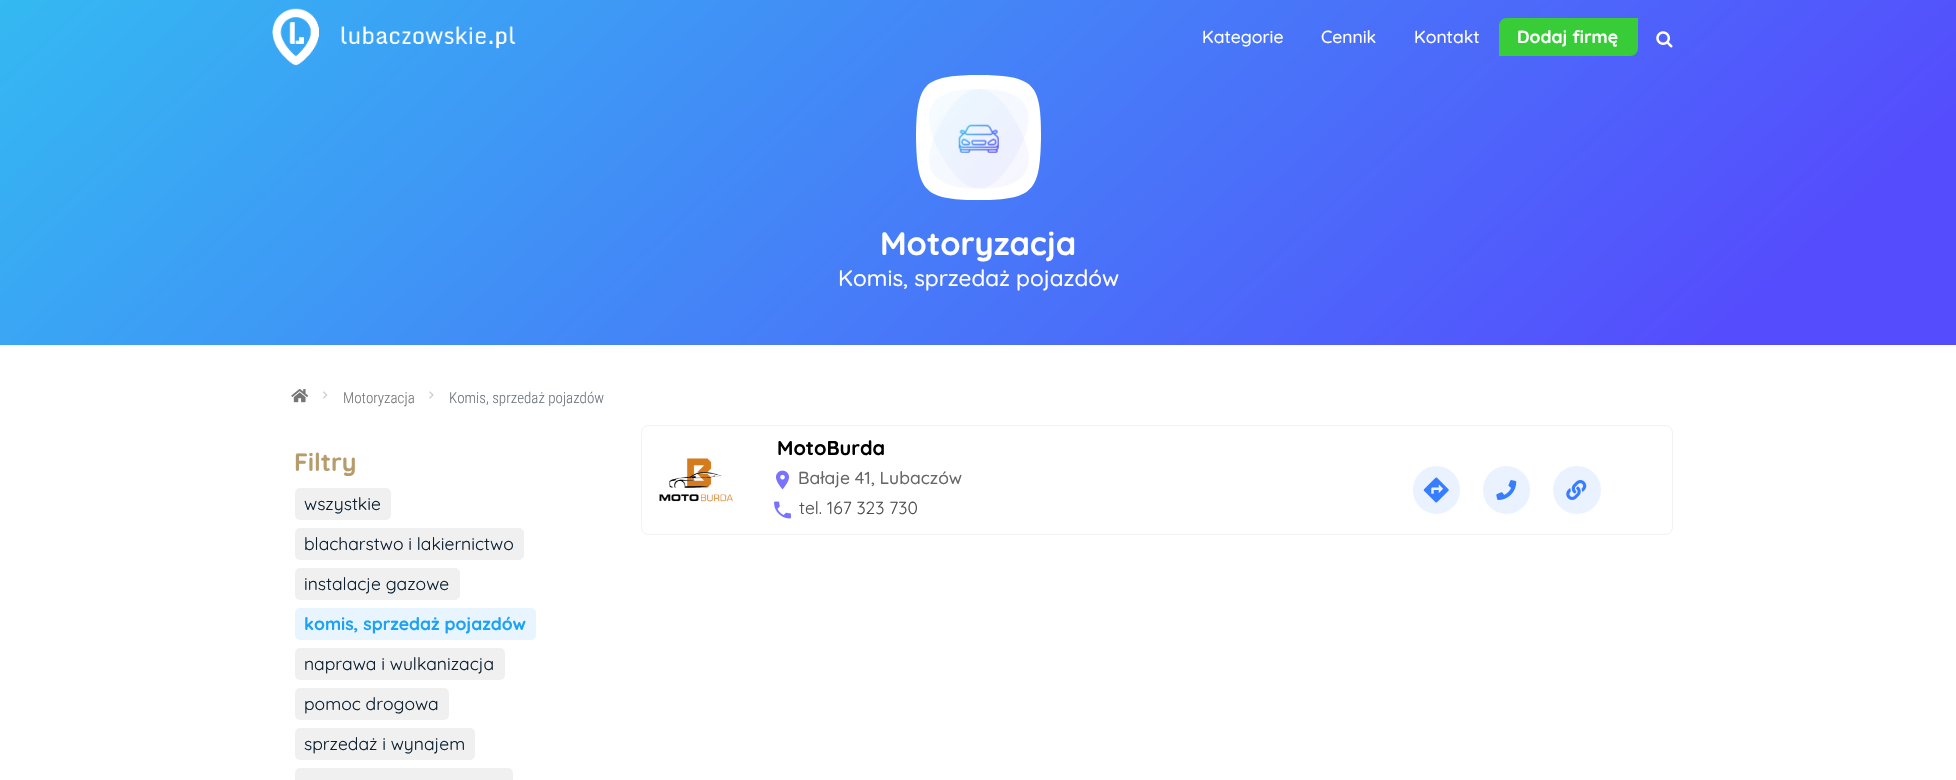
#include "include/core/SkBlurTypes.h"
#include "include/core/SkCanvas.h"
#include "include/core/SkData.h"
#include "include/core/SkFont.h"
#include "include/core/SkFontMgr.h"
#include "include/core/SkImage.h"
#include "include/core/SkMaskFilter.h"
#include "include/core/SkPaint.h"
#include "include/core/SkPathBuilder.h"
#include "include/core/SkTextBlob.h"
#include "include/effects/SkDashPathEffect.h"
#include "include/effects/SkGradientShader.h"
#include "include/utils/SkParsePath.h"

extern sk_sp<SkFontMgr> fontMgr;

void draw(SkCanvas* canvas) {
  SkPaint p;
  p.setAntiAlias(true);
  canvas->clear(SK_ColorWHITE);
  {
    const SkColor colors[] = {SkColorSetRGB(52, 185, 242), SkColorSetRGB(85, 76, 253)};
    const float stops[] = {0, 0.9f};
    const SkPoint ends[] = {{437, -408}, {1519, 753}};
    p.setShader(SkGradientShader::MakeLinear(ends, colors, stops, 2, SkTileMode::kClamp));
    p.setAlpha(255);
  }
  canvas->drawRect(SkRect::MakeLTRB(0, 0, 1956, 345), p);
  canvas->drawImageRect(SkImages::DeferredFromEncodedData(SkData::MakeFromFileName("images/1.png")), SkRect::MakeLTRB(272, 8, 516, 66), SkSamplingOptions());
  p.setShader(nullptr);
  p.setColor(SkColorSetRGB(56, 204, 56));
  canvas->drawPath(SkPathBuilder().moveTo(1507, 18).lineTo(1638, 18).lineTo(1638, 48).cubicTo(1638, 52.5f, 1634.5f, 56, 1630, 56).lineTo(1499, 56).lineTo(1499, 26).cubicTo(1499, 21.5f, 1502.5f, 18, 1507, 18).close().detach(), p);
  canvas->drawImageRect(SkImages::DeferredFromEncodedData(SkData::MakeFromFileName("images/2.png")), SkRect::MakeLTRB(1656, 31, 1673, 48), SkSamplingOptions());
  p.setColor(SK_ColorWHITE);
  canvas->drawPath(SkPathBuilder().moveTo(1027, 83).cubicTo(1018, 77, 1003, 75, 979, 75).cubicTo(954, 75, 940, 77, 930, 83).cubicTo(919, 91, 916, 107, 916, 138).cubicTo(917, 188, 923, 198, 967, 200).lineTo(990, 200).cubicTo(1034, 198, 1040, 188, 1041, 138).cubicTo(1041, 107, 1039, 91, 1027, 83).close().detach(), p);
  canvas->drawImageRect(SkImages::DeferredFromEncodedData(SkData::MakeFromFileName("images/3.png")), SkRect::MakeLTRB(929, 89, 1029, 189), SkSamplingOptions());
  canvas->drawImageRect(SkImages::DeferredFromEncodedData(SkData::MakeFromFileName("images/4.png")), SkRect::MakeLTRB(291, 389, 309, 403), SkSamplingOptions());
  canvas->drawImageRect(SkImages::DeferredFromEncodedData(SkData::MakeFromFileName("images/5.png")), SkRect::MakeLTRB(323, 391, 328, 399), SkSamplingOptions());
  canvas->drawImageRect(SkImages::DeferredFromEncodedData(SkData::MakeFromFileName("images/6.png")), SkRect::MakeLTRB(429, 391, 434, 399), SkSamplingOptions());
  p.setColor(SkColorSetRGB(240, 240, 240));
  canvas->drawRoundRect(SkRect::MakeLTRB(295, 488, 391, 520), 5, 5, p);
  canvas->drawRoundRect(SkRect::MakeLTRB(295, 528, 524, 560), 5, 5, p);
  canvas->drawRoundRect(SkRect::MakeLTRB(295, 568, 460, 600), 5, 5, p);
  p.setColor(SkColorSetRGB(232, 245, 254));
  canvas->drawRoundRect(SkRect::MakeLTRB(295, 608, 536, 640), 5, 5, p);
  p.setColor(SkColorSetRGB(240, 240, 240));
  canvas->drawRoundRect(SkRect::MakeLTRB(295, 648, 505, 680), 5, 5, p);
  canvas->drawRoundRect(SkRect::MakeLTRB(295, 688, 449, 720), 5, 5, p);
  canvas->drawRoundRect(SkRect::MakeLTRB(295, 728, 475, 760), 5, 5, p);
  canvas->drawRoundRect(SkRect::MakeLTRB(295, 768, 513, 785), 5, 5, p);
  p.setStyle(SkPaint::kStroke_Style);
  p.setStrokeWidth(1);
  p.setColor(SkColorSetRGB(242, 242, 242));
  canvas->drawRoundRect(SkRect::MakeLTRB(641.5f, 425.5f, 1672.5f, 534.5f), 7.5f, 7.5f, p);
  canvas->drawImageRect(SkImages::DeferredFromEncodedData(SkData::MakeFromFileName("images/7.png")), SkRect::MakeLTRB(659, 458, 734, 502), SkSamplingOptions());
  canvas->drawImageRect(SkImages::DeferredFromEncodedData(SkData::MakeFromFileName("images/8.png")), SkRect::MakeLTRB(776, 470, 789, 490), SkSamplingOptions());
  canvas->drawImageRect(SkImages::DeferredFromEncodedData(SkData::MakeFromFileName("images/9.png")), SkRect::MakeLTRB(774, 501, 791, 519), SkSamplingOptions());
  p.setStyle(SkPaint::kFill_Style);
  p.setColor(SkColorSetRGB(235, 242, 255));
  canvas->drawRoundRect(SkRect::MakeLTRB(1413, 466, 1460, 514), 23.5f, 23.5f, p);
  canvas->drawImageRect(SkImages::DeferredFromEncodedData(SkData::MakeFromFileName("images/10.png")), SkRect::MakeLTRB(1423, 477, 1449, 503), SkSamplingOptions());
  canvas->drawRoundRect(SkRect::MakeLTRB(1483, 466, 1530, 514), 23.5f, 23.5f, p);
  canvas->drawImageRect(SkImages::DeferredFromEncodedData(SkData::MakeFromFileName("images/11.png")), SkRect::MakeLTRB(1496, 480, 1517, 500), SkSamplingOptions());
  canvas->drawCircle(1577, 490, 24, p);
  canvas->drawImageRect(SkImages::DeferredFromEncodedData(SkData::MakeFromFileName("images/12.png")), SkRect::MakeLTRB(1566, 480, 1587, 500), SkSamplingOptions());
  SkFont font1(fontMgr->matchFamilyStyle("Quicksand", SkFontStyle(500, SkFontStyle::kNormal_Width, SkFontStyle::kUpright_Slant)), 17.5f);
  font1.setSubpixel(true);
  p.setColor(SK_ColorWHITE);
  canvas->drawString("Kategorie", 1202, 43, font1, p);
  canvas->drawString("Cennik", 1321, 43, font1, p);
  canvas->drawString("Kontakt", 1414, 43, font1, p);
  SkFont font2(fontMgr->matchFamilyStyle("Quicksand", SkFontStyle::Bold()), 17.5f);
  font2.setSubpixel(true);
  canvas->drawString("Dodaj firmę", 1517, 43, font2, p);
  SkFont font3(fontMgr->matchFamilyStyle("Quicksand", SkFontStyle::Bold()), 32.5f);
  font3.setSubpixel(true);
  canvas->drawString("Motoryzacja", 880, 255, font3, p);
  SkFont font4(fontMgr->matchFamilyStyle("Quicksand", SkFontStyle(500, SkFontStyle::kNormal_Width, SkFontStyle::kUpright_Slant)), 22.5f);
  font4.setSubpixel(true);
  canvas->drawString("Komis, sprzedaż pojazdów", 838, 286, font4, p);
  SkFont font5(fontMgr->matchFamilyStyle("Roboto Condensed", SkFontStyle(300, SkFontStyle::kNormal_Width, SkFontStyle::kUpright_Slant)), 15);
  font5.setSubpixel(true);
  p.setColor(SkColorSetRGB(118, 118, 118));
  canvas->drawString("Motoryzacja", 343, 403, font5, p);
  p.setColor(SkColorSetRGB(108, 117, 125));
  canvas->drawString("Komis, sprzedaż pojazdów", 449, 403, font5, p);
  SkFont font6(fontMgr->matchFamilyStyle("Quicksand", SkFontStyle::Bold()), 25);
  font6.setSubpixel(true);
  p.setColor(SkColorSetRGB(183, 155, 108));
  canvas->drawString("Filtry", 294, 471, font6, p);
  SkFont font7(fontMgr->matchFamilyStyle("Quicksand", SkFontStyle::Normal()), 17.5f);
  font7.setSubpixel(true);
  p.setColor(SkColorSetRGB(11, 31, 47));
  canvas->drawString("wszystkie", 304, 510, font7, p);
  canvas->drawString("blacharstwo i lakiernictwo", 304, 550, font7, p);
  canvas->drawString("instalacje gazowe", 304, 590, font7, p);
  p.setColor(SkColorSetRGB(29, 161, 242));
  canvas->drawString("komis, sprzedaż pojazdów", 304, 630, font2, p);
  p.setColor(SkColorSetRGB(11, 31, 47));
  canvas->drawString("naprawa i wulkanizacja", 304, 670, font7, p);
  canvas->drawString("pomoc drogowa", 304, 710, font7, p);
  canvas->drawString("sprzedaż i wynajem", 304, 750, font7, p);
  SkFont font8(fontMgr->matchFamilyStyle("Quicksand", SkFontStyle::Bold()), 20);
  font8.setSubpixel(true);
  p.setColor(SK_ColorBLACK);
  canvas->drawString("MotoBurda", 777, 455, font8, p);
  p.setColor(SkColorSetRGB(102, 102, 102));
  canvas->drawString("Bałaje 41, Lubaczów", 798, 484, font1, p);
  p.setColor(SkColorSetRGB(78, 78, 78));
  canvas->drawString("tel. 167 323 730", 799, 514, font7, p);
}
